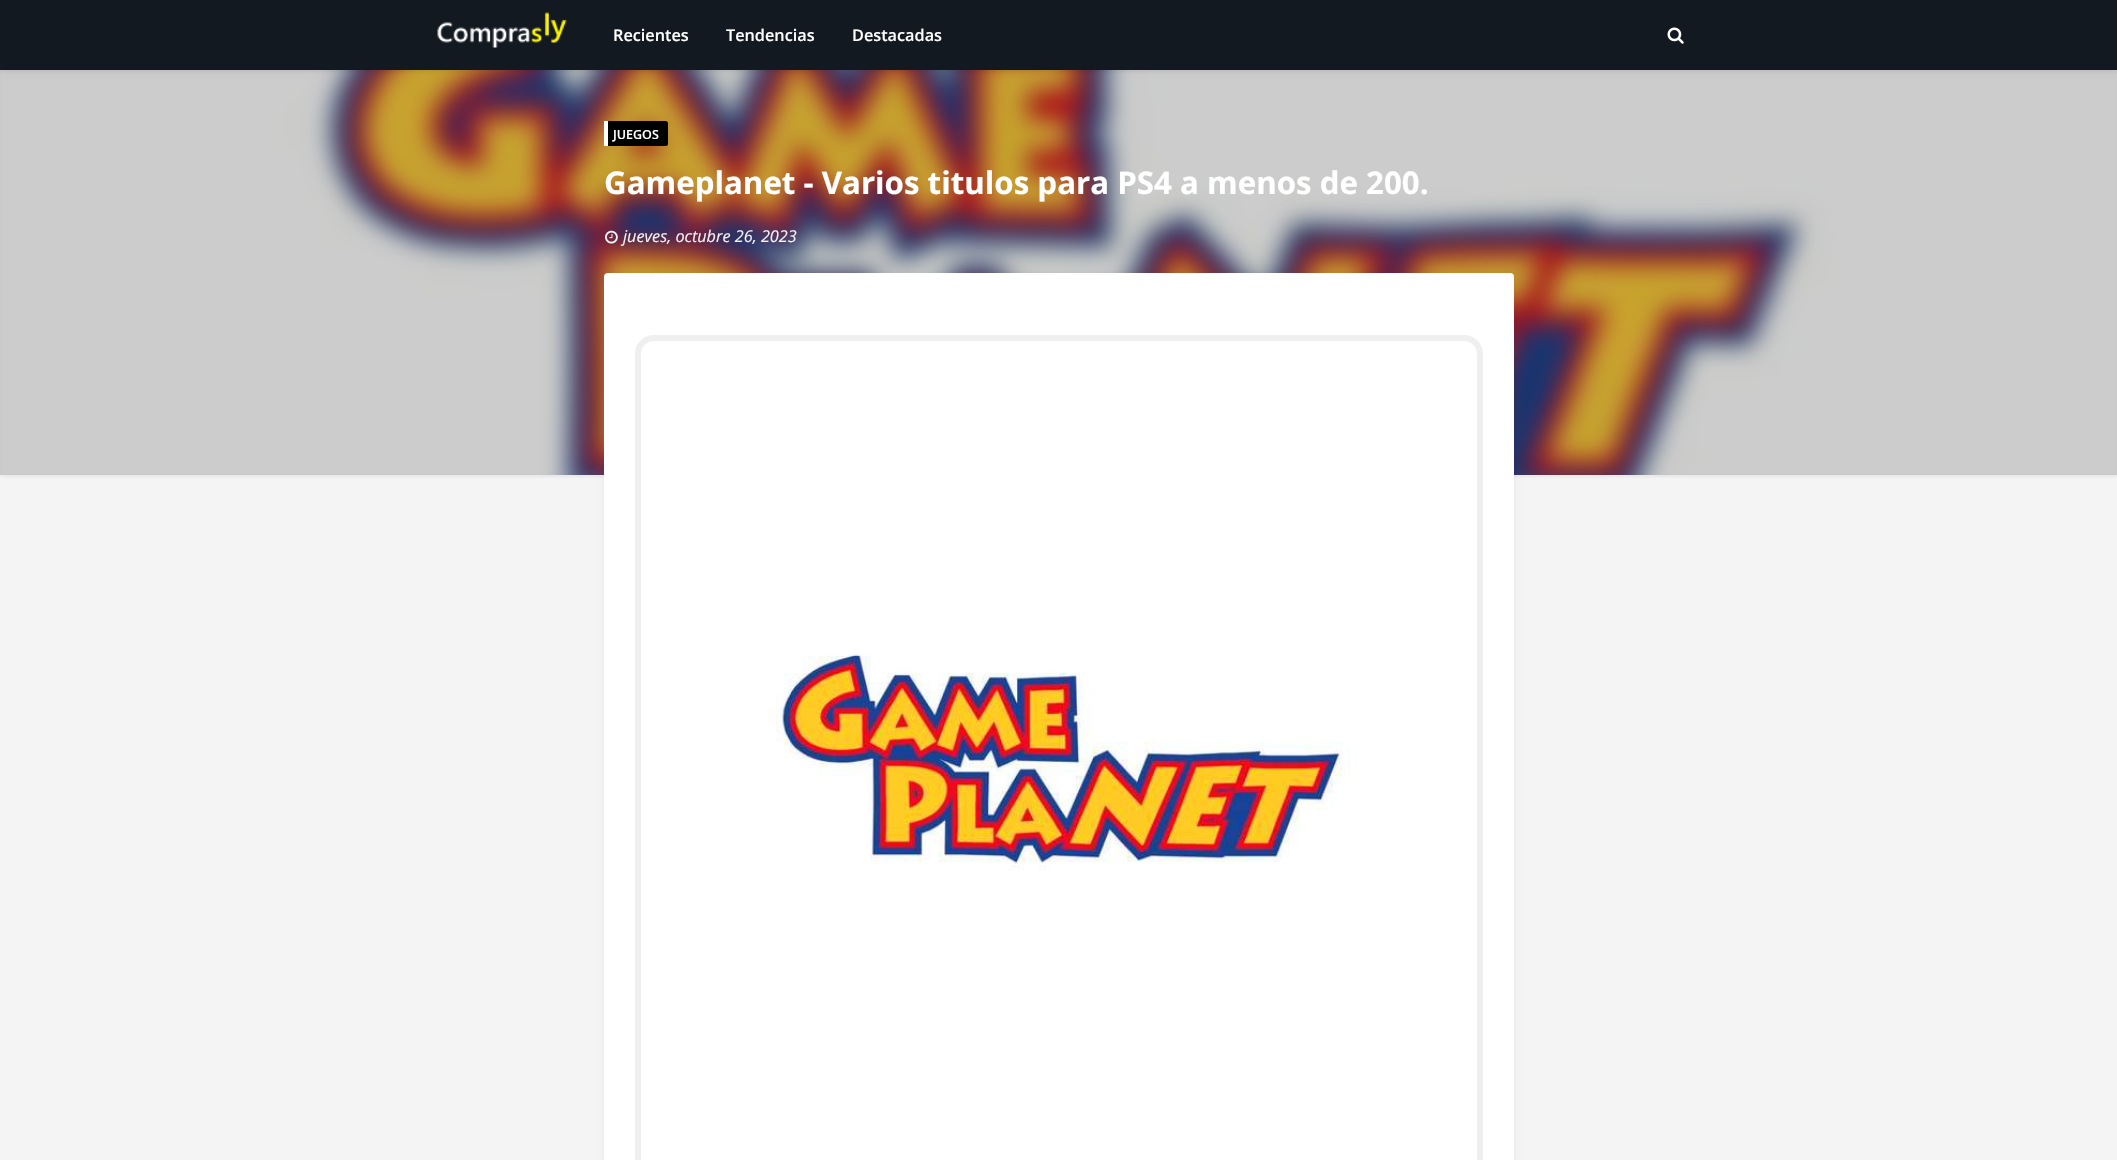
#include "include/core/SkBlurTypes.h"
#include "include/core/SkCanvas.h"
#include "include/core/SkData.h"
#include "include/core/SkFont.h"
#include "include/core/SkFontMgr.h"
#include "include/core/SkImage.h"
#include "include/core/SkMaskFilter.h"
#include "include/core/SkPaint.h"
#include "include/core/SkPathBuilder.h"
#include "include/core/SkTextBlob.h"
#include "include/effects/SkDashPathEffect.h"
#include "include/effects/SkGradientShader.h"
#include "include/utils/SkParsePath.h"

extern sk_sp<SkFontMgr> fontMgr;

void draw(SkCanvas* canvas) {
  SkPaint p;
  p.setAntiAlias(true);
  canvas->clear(SkColorSetRGB(244, 244, 244));
  canvas->save();
  canvas->clipRect(SkRect::MakeLTRB(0, 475, 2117, 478));
  p.setColor(SkColorSetARGB(26, 0, 0, 0));
  p.setMaskFilter(SkMaskFilter::MakeBlur(kNormal_SkBlurStyle, 3));
  canvas->drawRect(SkRect::MakeLTRB(0, 0, 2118, 475), p);
  p.setMaskFilter(nullptr);
  canvas->restore();
  canvas->save();
  canvas->clipRect(SkRect::MakeLTRB(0, 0, 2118, 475));
  p.setColor(SkColorSetRGB(19, 25, 33));
  p.setMaskFilter(SkMaskFilter::MakeBlur(kNormal_SkBlurStyle, 12.5f));
  canvas->drawRect(SkRect::MakeLTRB(-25, -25, 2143, 500), p);
  p.setMaskFilter(nullptr);
  canvas->restore();
  canvas->drawImageRect(SkImages::DeferredFromEncodedData(SkData::MakeFromFileName("images/1.png")), SkRect::MakeLTRB(0, 70, 2117, 475), SkSamplingOptions());
  canvas->save();
  canvas->clipRect(SkRect::MakeLTRB(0, 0, 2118, 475));
  p.setColor(SkColorSetARGB(51, 0, 0, 0));
  p.setMaskFilter(SkMaskFilter::MakeBlur(kNormal_SkBlurStyle, 12.5f));
  canvas->drawRect(SkRect::MakeLTRB(-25, -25, 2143, 500), p);
  p.setMaskFilter(nullptr);
  canvas->restore();
  p.setColor(SkColorSetARGB(26, 0, 0, 0));
  p.setMaskFilter(SkMaskFilter::MakeBlur(kNormal_SkBlurStyle, 2.5f));
  canvas->drawRect(SkRect::MakeLTRB(0, 1, 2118, 71), p);
  p.setMaskFilter(nullptr);
  p.setColor(SkColorSetRGB(19, 25, 33));
  canvas->drawRect(SkRect::MakeLTRB(0, 0, 2117, 70), p);
  canvas->drawImageRect(SkImages::DeferredFromEncodedData(SkData::MakeFromFileName("images/2.png")), SkRect::MakeLTRB(437, 12, 567, 48), SkSamplingOptions());
  canvas->drawImageRect(SkImages::DeferredFromEncodedData(SkData::MakeFromFileName("images/3.png")), SkRect::MakeLTRB(1667, 27, 1684, 44), SkSamplingOptions());
  p.setColor(SK_ColorBLACK);
  canvas->drawRoundRect(SkRect::MakeLTRB(604, 121, 668, 146), 2.5f, 2.5f, p);
  p.setColor(SK_ColorWHITE);
  canvas->drawRect(SkRect::MakeLTRB(604, 121, 608, 146), p);
  canvas->drawImageRect(SkImages::DeferredFromEncodedData(SkData::MakeFromFileName("images/4.png")), SkRect::MakeLTRB(605, 230, 618, 244), SkSamplingOptions());
  p.setColor(SkColorSetARGB(13, 0, 0, 0));
  p.setMaskFilter(SkMaskFilter::MakeBlur(kNormal_SkBlurStyle, 3));
  canvas->drawRoundRect(SkRect::MakeLTRB(604, 273, 1514, 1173), 4, 4, p);
  p.setMaskFilter(nullptr);
  p.setColor(SK_ColorWHITE);
  canvas->drawRoundRect(SkRect::MakeLTRB(604, 273, 1514, 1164), 4, 4, p);
  p.setStyle(SkPaint::kStroke_Style);
  p.setStrokeWidth(6);
  p.setColor(SkColorSetRGB(239, 239, 239));
  canvas->drawRoundRect(SkRect::MakeLTRB(638, 338, 1480, 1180), 16, 16, p);
  canvas->drawImageRect(SkImages::DeferredFromEncodedData(SkData::MakeFromFileName("images/5.png")), SkRect::MakeLTRB(767, 654, 1351, 870), SkSamplingOptions());
  SkFont font1(fontMgr->matchFamilyStyle("Open Sans", SkFontStyle(600, SkFontStyle::kNormal_Width, SkFontStyle::kUpright_Slant)), 16.25f);
  font1.setSubpixel(true);
  p.setStyle(SkPaint::kFill_Style);
  p.setColor(SK_ColorWHITE);
  canvas->drawString("Recientes", 613, 41, font1, p);
  canvas->drawString("Tendencias", 726, 41, font1, p);
  canvas->drawString("Destacadas", 852, 41, font1, p);
  SkFont font2(fontMgr->matchFamilyStyle("Open Sans", SkFontStyle(600, SkFontStyle::kNormal_Width, SkFontStyle::kUpright_Slant)), 12.5f);
  font2.setSubpixel(true);
  canvas->drawString("JUEGOS", 613, 139, font2, p);
  SkFont font3(fontMgr->matchFamilyStyle("Open Sans", SkFontStyle::Bold()), 31.25f);
  font3.setSubpixel(true);
  canvas->drawString("Gameplanet - Varios titulos para PS4 a menos de 200.", 604, 194, font3, p);
  SkFont font4(fontMgr->matchFamilyStyle("Open Sans", SkFontStyle::Italic()), 16.25f);
  font4.setSubpixel(true);
  p.setColor(SkColorSetRGB(242, 242, 242));
  canvas->drawString("jueves, octubre 26, 2023", 623, 242, font4, p);
}
